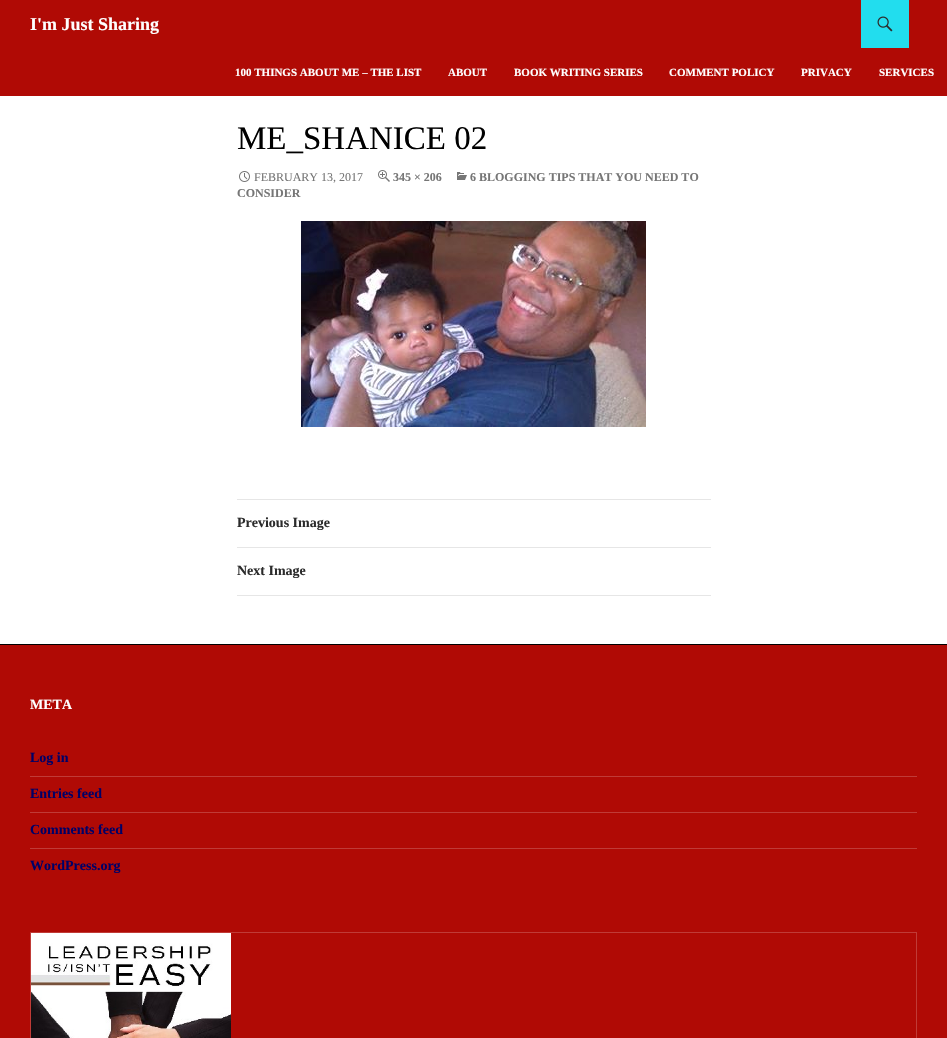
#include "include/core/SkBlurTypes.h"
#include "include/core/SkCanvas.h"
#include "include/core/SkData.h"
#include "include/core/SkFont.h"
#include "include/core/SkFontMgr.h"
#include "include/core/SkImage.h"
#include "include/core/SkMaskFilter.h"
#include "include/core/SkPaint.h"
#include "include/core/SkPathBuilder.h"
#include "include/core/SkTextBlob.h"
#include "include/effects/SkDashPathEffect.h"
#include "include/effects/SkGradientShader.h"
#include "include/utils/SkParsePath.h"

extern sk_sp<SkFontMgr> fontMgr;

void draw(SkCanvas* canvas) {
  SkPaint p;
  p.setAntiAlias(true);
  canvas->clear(SK_ColorWHITE);
  p.setColor(SkColorSetRGB(176, 10, 5));
  canvas->drawRect(SkRect::MakeLTRB(0, 0, 947, 96), p);
  p.setColor(SkColorSetRGB(34, 221, 238));
  canvas->drawRect(SkRect::MakeLTRB(861, 0, 909, 48), p);
  canvas->drawImageRect(SkImages::DeferredFromEncodedData(SkData::MakeFromFileName("images/1.png")), SkRect::MakeLTRB(877, 16, 893, 32), SkSamplingOptions());
  canvas->drawImageRect(SkImages::DeferredFromEncodedData(SkData::MakeFromFileName("images/2.png")), SkRect::MakeLTRB(457, 172, 467, 180), SkSamplingOptions());
  canvas->drawImageRect(SkImages::DeferredFromEncodedData(SkData::MakeFromFileName("images/3.png")), SkRect::MakeLTRB(239, 171, 250, 182), SkSamplingOptions());
  canvas->drawImageRect(SkImages::DeferredFromEncodedData(SkData::MakeFromFileName("images/4.png")), SkRect::MakeLTRB(378, 170, 390, 182), SkSamplingOptions());
  canvas->drawImageRect(SkImages::DeferredFromEncodedData(SkData::MakeFromFileName("images/5.png")), SkRect::MakeLTRB(301, 221, 646, 427), SkSamplingOptions());
  p.setColor(SkColorSetRGB(230, 230, 230));
  canvas->drawRect(SkRect::MakeLTRB(237, 499, 711, 500), p);
  canvas->drawRect(SkRect::MakeLTRB(237, 547, 711, 548), p);
  canvas->drawRect(SkRect::MakeLTRB(237, 595, 711, 596), p);
  p.setColor(SkColorSetRGB(176, 10, 5));
  canvas->drawRect(SkRect::MakeLTRB(0, 645, 947, 1038), p);
  p.setColor(SK_ColorBLACK);
  canvas->drawRect(SkRect::MakeLTRB(0, 644, 947, 645), p);
  p.setColor(SkColorSetRGB(192, 59, 55));
  canvas->drawRect(SkRect::MakeLTRB(30, 776, 917, 777), p);
  canvas->drawRect(SkRect::MakeLTRB(30, 812, 917, 813), p);
  canvas->drawRect(SkRect::MakeLTRB(30, 848, 917, 849), p);
  canvas->drawPath(SkPathBuilder().moveTo(30, 932).lineTo(917, 932).lineTo(917, 933).lineTo(31, 933).close().detach(), p);
  p.setColor(SkColorSetARGB(51, 255, 255, 255));
  canvas->drawPath(SkPathBuilder().moveTo(30, 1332).lineTo(30, 932).lineTo(31, 933).lineTo(31, 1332).close().detach(), p);
  p.setColor(SkColorSetRGB(192, 59, 55));
  canvas->drawPath(SkPathBuilder().moveTo(917, 933).lineTo(917, 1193).lineTo(916, 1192).lineTo(916, 933).close().detach(), p);
  canvas->drawImageRect(SkImages::DeferredFromEncodedData(SkData::MakeFromFileName("images/6.png")), SkRect::MakeLTRB(31, 933, 231, 1038), SkSamplingOptions());
  SkFont font1(fontMgr->matchFamilyStyle("Liberation Serif", SkFontStyle::Bold()), 18);
  font1.setSubpixel(true);
  p.setColor(SK_ColorWHITE);
  canvas->drawString("I'm Just Sharing", 30, 30, font1, p);
  SkFont font2(fontMgr->matchFamilyStyle("Liberation Serif", SkFontStyle::Bold()), 11);
  font2.setSubpixel(true);
  canvas->drawString("100 THINGS ABOUT ME – THE LIST", 235, 76, font2, p);
  canvas->drawString("ABOUT", 448, 76, font2, p);
  canvas->drawString("BOOK WRITING SERIES", 514, 76, font2, p);
  canvas->drawString("COMMENT POLICY", 669, 76, font2, p);
  canvas->drawString("PRIVACY", 801, 76, font2, p);
  canvas->drawString("SERVICES", 879, 76, font2, p);
  SkFont font3(fontMgr->matchFamilyStyle("Liberation Serif", SkFontStyle::Normal()), 33);
  font3.setSubpixel(true);
  p.setColor(SK_ColorBLACK);
  canvas->drawString("ME_SHANICE 02", 237, 149, font3, p);
  SkFont font4(fontMgr->matchFamilyStyle("Liberation Serif", SkFontStyle::Bold()), 12);
  font4.setSubpixel(true);
  p.setColor(SkColorSetRGB(118, 118, 118));
  canvas->drawString("6 BLOGGING TIPS THAT YOU NEED TO", 470, 181, font4, p);
  canvas->drawString("CONSIDER", 237, 197, font4, p);
  SkFont font5(fontMgr->matchFamilyStyle("Liberation Serif", SkFontStyle::Normal()), 12);
  font5.setSubpixel(true);
  canvas->drawString("FEBRUARY 13, 2017", 254, 181, font5, p);
  canvas->drawString("345 × 206", 393, 181, font4, p);
  SkFont font6(fontMgr->matchFamilyStyle("Liberation Serif", SkFontStyle::Bold()), 14);
  font6.setSubpixel(true);
  p.setColor(SkColorSetRGB(43, 43, 43));
  canvas->drawString("Previous Image", 237, 527, font6, p);
  canvas->drawString("Next Image", 237, 575, font6, p);
  p.setColor(SK_ColorWHITE);
  canvas->drawString("META", 30, 709, font6, p);
  p.setColor(SkColorSetRGB(0, 0, 102));
  canvas->drawString("Log in", 30, 762, font6, p);
  canvas->drawString("Entries feed", 30, 798, font6, p);
  canvas->drawString("Comments feed", 30, 834, font6, p);
  canvas->drawString("WordPress.org", 30, 870, font6, p);
}
